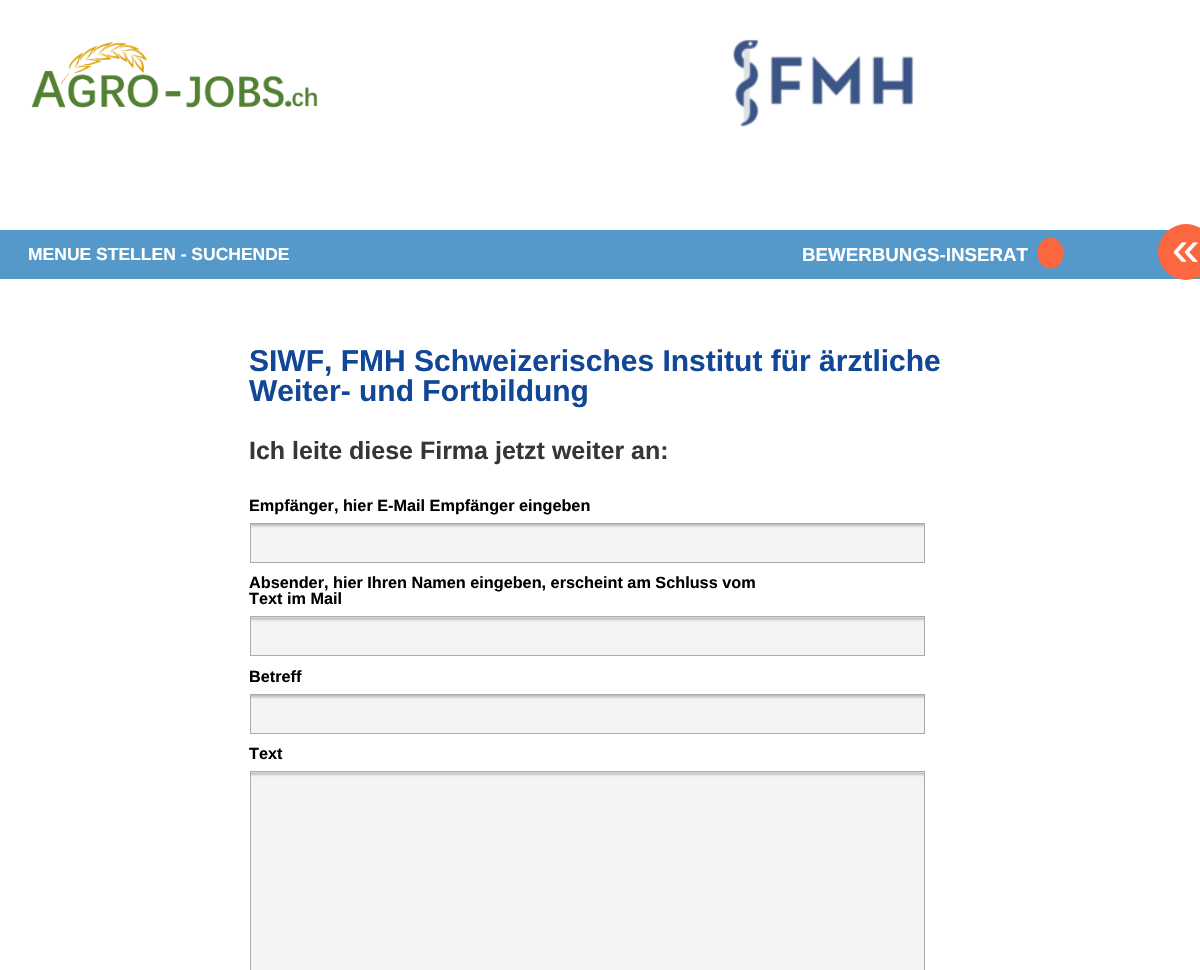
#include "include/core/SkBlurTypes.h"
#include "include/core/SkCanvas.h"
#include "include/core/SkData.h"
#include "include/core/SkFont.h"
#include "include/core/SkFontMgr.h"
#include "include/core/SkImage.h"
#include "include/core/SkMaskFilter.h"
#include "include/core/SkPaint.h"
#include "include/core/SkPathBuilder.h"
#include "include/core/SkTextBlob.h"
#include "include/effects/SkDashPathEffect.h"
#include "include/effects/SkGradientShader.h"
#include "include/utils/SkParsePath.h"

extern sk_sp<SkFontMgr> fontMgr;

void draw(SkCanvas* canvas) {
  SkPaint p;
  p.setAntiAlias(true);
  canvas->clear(SK_ColorWHITE);
  canvas->drawImageRect(SkImages::DeferredFromEncodedData(SkData::MakeFromFileName("images/1.png")), SkRect::MakeLTRB(31, 41, 318, 108), SkSamplingOptions());
  canvas->drawImageRect(SkImages::DeferredFromEncodedData(SkData::MakeFromFileName("images/2.png")), SkRect::MakeLTRB(732, 39, 914, 127), SkSamplingOptions());
  p.setColor(SkColorSetRGB(84, 153, 202));
  canvas->drawRect(SkRect::MakeLTRB(0, 230, 1200, 279), p);
  p.setColor(SkColorSetRGB(251, 104, 63));
  canvas->drawOval(SkRect::MakeLTRB(1037.5f, 237.5f, 1063.5f, 268.5f), p);
  canvas->drawCircle(1186, 252, 28, p);
  p.setColor(SkColorSetRGB(244, 244, 244));
  canvas->drawRect(SkRect::MakeLTRB(251, 528, 924, 562), p);
  canvas->drawImageRect(SkImages::DeferredFromEncodedData(SkData::MakeFromFileName("images/3.png")), SkRect::MakeLTRB(251, 524, 924, 528), SkSamplingOptions());
  p.setStyle(SkPaint::kStroke_Style);
  p.setStrokeWidth(1);
  p.setColor(SkColorSetRGB(168, 172, 173));
  canvas->drawRect(SkRect::MakeLTRB(250.5f, 523.5f, 924.5f, 562.5f), p);
  p.setStyle(SkPaint::kFill_Style);
  p.setColor(SkColorSetRGB(244, 244, 244));
  canvas->drawRect(SkRect::MakeLTRB(251, 617, 924, 655), p);
  canvas->drawImageRect(SkImages::DeferredFromEncodedData(SkData::MakeFromFileName("images/4.png")), SkRect::MakeLTRB(251, 617, 924, 622), SkSamplingOptions());
  p.setStyle(SkPaint::kStroke_Style);
  p.setColor(SkColorSetRGB(168, 172, 173));
  canvas->drawRect(SkRect::MakeLTRB(250.5f, 616.5f, 924.5f, 655.5f), p);
  p.setStyle(SkPaint::kFill_Style);
  p.setColor(SkColorSetRGB(244, 244, 244));
  canvas->drawRect(SkRect::MakeLTRB(251, 699, 924, 733), p);
  canvas->drawImageRect(SkImages::DeferredFromEncodedData(SkData::MakeFromFileName("images/5.png")), SkRect::MakeLTRB(251, 695, 924, 699), SkSamplingOptions());
  p.setStyle(SkPaint::kStroke_Style);
  p.setColor(SkColorSetRGB(168, 172, 173));
  canvas->drawRect(SkRect::MakeLTRB(250.5f, 694.5f, 924.5f, 733.5f), p);
  p.setStyle(SkPaint::kFill_Style);
  p.setColor(SkColorSetRGB(244, 244, 244));
  canvas->drawRect(SkRect::MakeLTRB(251, 772, 924, 970), p);
  canvas->drawImageRect(SkImages::DeferredFromEncodedData(SkData::MakeFromFileName("images/4.png")), SkRect::MakeLTRB(251, 772, 924, 777), SkSamplingOptions());
  p.setStyle(SkPaint::kStroke_Style);
  p.setColor(SkColorSetRGB(168, 172, 173));
  canvas->drawRect(SkRect::MakeLTRB(250.5f, 771.5f, 924.5f, 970.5f), p);
  SkFont font1(fontMgr->matchFamilyStyle("Liberation Sans", SkFontStyle::Bold()), 17.5f);
  font1.setSubpixel(true);
  p.setStyle(SkPaint::kFill_Style);
  p.setColor(SK_ColorWHITE);
  canvas->drawString("MENUE STELLEN - SUCHENDE", 28, 260, font1, p);
  SkFont font2(fontMgr->matchFamilyStyle("Liberation Sans", SkFontStyle::Bold()), 18.75f);
  font2.setSubpixel(true);
  canvas->drawString("BEWERBUNGS-INSERAT", 802, 261, font2, p);
  SkFont font3(fontMgr->matchFamilyStyle("Liberation Sans", SkFontStyle::Normal()), 49);
  font3.setSubpixel(true);
  canvas->drawString("«", 1172, 265, font3, p);
  SkFont font4(fontMgr->matchFamilyStyle("Liberation Sans", SkFontStyle::Bold()), 30);
  font4.setSubpixel(true);
  p.setColor(SkColorSetRGB(18, 71, 150));
  canvas->drawString("SIWF, FMH Schweizerisches Institut für ärztliche", 249, 371, font4, p);
  canvas->drawString("Weiter- und Fortbildung", 249, 401, font4, p);
  SkFont font5(fontMgr->matchFamilyStyle("Liberation Sans", SkFontStyle::Bold()), 25);
  font5.setSubpixel(true);
  p.setColor(SkColorSetRGB(53, 54, 54));
  canvas->drawString("Ich leite diese Firma jetzt weiter an:", 249, 459, font5, p);
  SkFont font6(fontMgr->matchFamilyStyle("Liberation Sans", SkFontStyle::Bold()), 16.25f);
  font6.setSubpixel(true);
  p.setColor(SK_ColorBLACK);
  canvas->drawString("Empfänger, hier E-Mail Empfänger eingeben", 249, 511, font6, p);
  canvas->drawString("Absender, hier Ihren Namen eingeben, erscheint am Schluss vom", 249, 588, font6, p);
  canvas->drawString("Text im Mail", 249, 604, font6, p);
  canvas->drawString("Betreff", 249, 682, font6, p);
  canvas->drawString("Text", 249, 759, font6, p);
}
